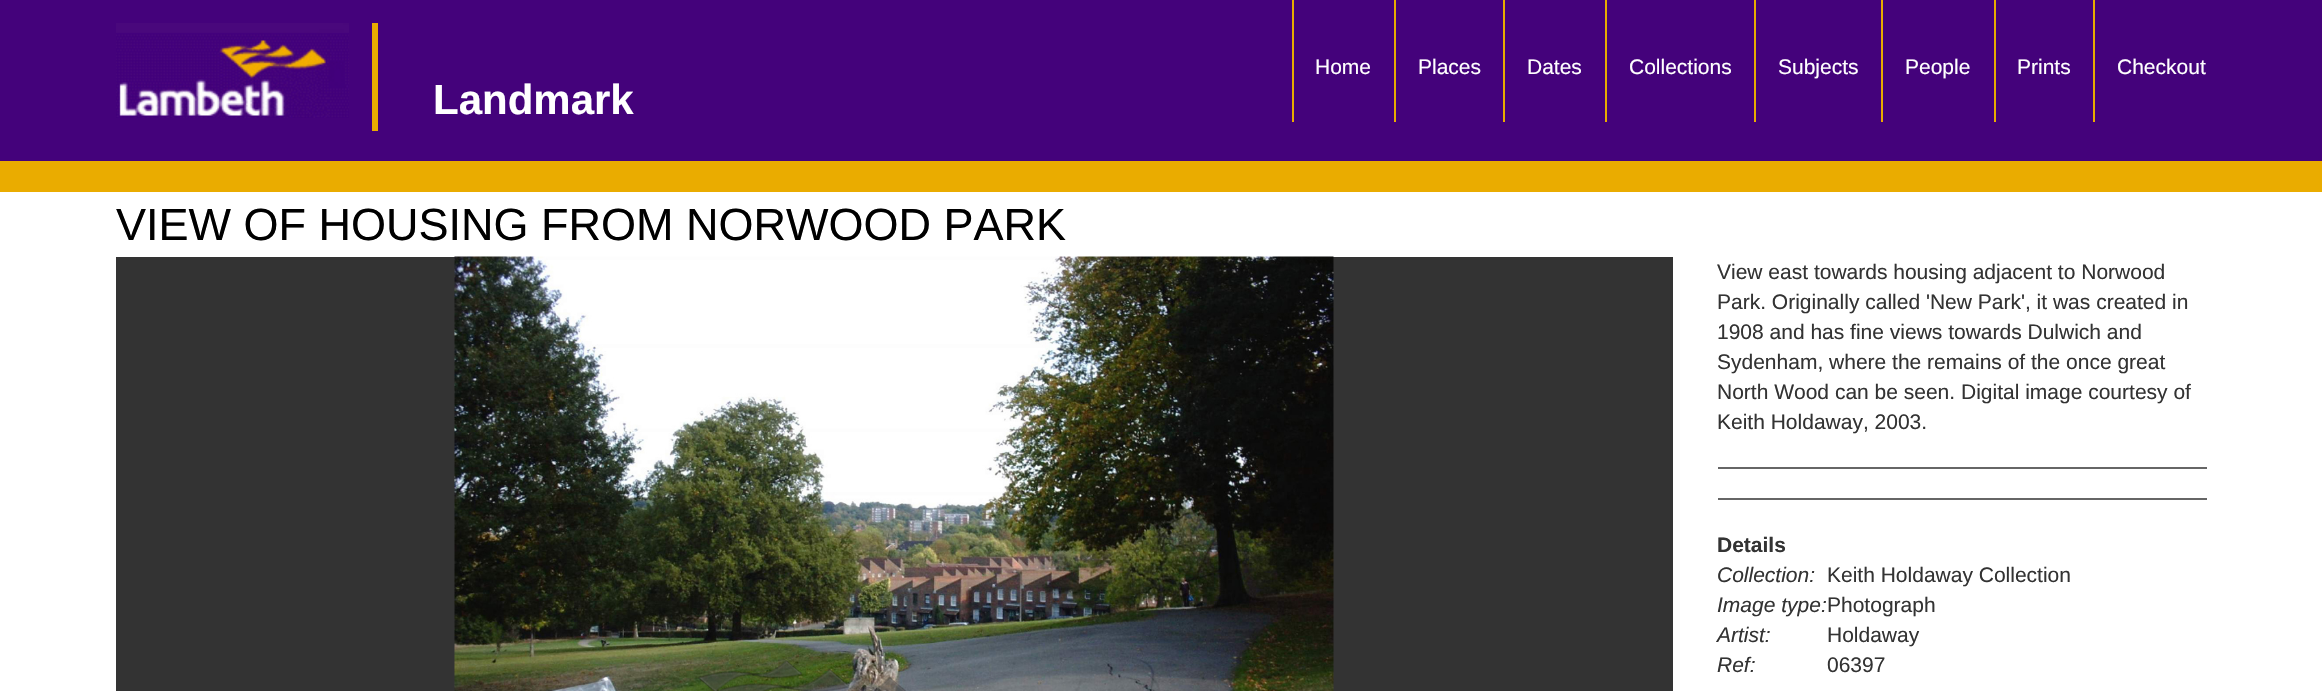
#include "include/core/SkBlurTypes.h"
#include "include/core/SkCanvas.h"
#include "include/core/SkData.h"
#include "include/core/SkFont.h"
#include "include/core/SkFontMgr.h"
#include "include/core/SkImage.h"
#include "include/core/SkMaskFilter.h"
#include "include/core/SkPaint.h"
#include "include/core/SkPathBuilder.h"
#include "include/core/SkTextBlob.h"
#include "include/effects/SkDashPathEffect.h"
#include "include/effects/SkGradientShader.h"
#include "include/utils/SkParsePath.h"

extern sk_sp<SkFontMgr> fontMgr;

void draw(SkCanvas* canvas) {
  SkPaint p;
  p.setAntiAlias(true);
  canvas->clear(SK_ColorWHITE);
  p.setColor(SkColorSetRGB(68, 2, 123));
  canvas->drawRect(SkRect::MakeLTRB(0, 0, 2322, 161), p);
  p.setColor(SkColorSetRGB(234, 172, 0));
  canvas->drawRect(SkRect::MakeLTRB(1292, 0, 1294, 122), p);
  canvas->drawRect(SkRect::MakeLTRB(1394, 0, 1396, 122), p);
  canvas->drawRect(SkRect::MakeLTRB(1503, 0, 1505, 122), p);
  canvas->drawRect(SkRect::MakeLTRB(1605, 0, 1607, 122), p);
  canvas->drawRect(SkRect::MakeLTRB(1754, 0, 1756, 122), p);
  canvas->drawRect(SkRect::MakeLTRB(1881, 0, 1883, 122), p);
  canvas->drawRect(SkRect::MakeLTRB(1994, 0, 1996, 122), p);
  canvas->drawRect(SkRect::MakeLTRB(2093, 0, 2095, 122), p);
  canvas->drawImageRect(SkImages::DeferredFromEncodedData(SkData::MakeFromFileName("images/1.png")), SkRect::MakeLTRB(116, 23, 349, 118), SkSamplingOptions());
  canvas->drawRect(SkRect::MakeLTRB(372, 23, 378, 131), p);
  canvas->drawRect(SkRect::MakeLTRB(0, 161, 2322, 192), p);
  p.setColor(SkColorSetRGB(51, 51, 51));
  canvas->drawRect(SkRect::MakeLTRB(116, 257, 1673, 691), p);
  canvas->drawImageRect(SkImages::DeferredFromEncodedData(SkData::MakeFromFileName("images/2.png")), SkRect::MakeLTRB(454, 256, 1334, 691), SkSamplingOptions());
  p.setColor(SkColorSetRGB(102, 102, 102));
  canvas->drawRect(SkRect::MakeLTRB(1718, 467, 2207, 469), p);
  canvas->drawRect(SkRect::MakeLTRB(1718, 498, 2207, 500), p);
  SkFont font1(fontMgr->matchFamilyStyle("Liberation Sans", SkFontStyle::Normal()), 21);
  font1.setSubpixel(true);
  p.setColor(SK_ColorWHITE);
  canvas->drawString("Home", 1315, 74, font1, p);
  canvas->drawString("Places", 1418, 74, font1, p);
  canvas->drawString("Dates", 1527, 74, font1, p);
  canvas->drawString("Collections", 1629, 74, font1, p);
  canvas->drawString("Subjects", 1778, 74, font1, p);
  canvas->drawString("People", 1905, 74, font1, p);
  canvas->drawString("Prints", 2017, 74, font1, p);
  canvas->drawString("Checkout", 2117, 74, font1, p);
  SkFont font2(fontMgr->matchFamilyStyle("Liberation Sans", SkFontStyle::Bold()), 42);
  font2.setSubpixel(true);
  canvas->drawString("Landmark", 433, 114, font2, p);
  SkFont font3(fontMgr->matchFamilyStyle("Liberation Sans", SkFontStyle::Normal()), 45);
  font3.setSubpixel(true);
  p.setColor(SK_ColorBLACK);
  canvas->drawString("VIEW OF HOUSING FROM NORWOOD PARK", 116, 240, font3, p);
  p.setColor(SkColorSetRGB(51, 51, 51));
  canvas->drawString("View east towards housing adjacent to Norwood", 1717, 279, font1, p);
  canvas->drawString("Park. Originally called 'New Park', it was created in", 1717, 309, font1, p);
  canvas->drawString("1908 and has fine views towards Dulwich and", 1717, 339, font1, p);
  canvas->drawString("Sydenham, where the remains of the once great", 1717, 369, font1, p);
  canvas->drawString("North Wood can be seen. Digital image courtesy of", 1717, 399, font1, p);
  canvas->drawString("Keith Holdaway, 2003.", 1717, 429, font1, p);
  SkFont font4(fontMgr->matchFamilyStyle("Liberation Sans", SkFontStyle::Bold()), 21);
  font4.setSubpixel(true);
  canvas->drawString("Details", 1717, 552, font4, p);
  SkFont font5(fontMgr->matchFamilyStyle("Liberation Sans", SkFontStyle::Italic()), 21);
  font5.setSubpixel(true);
  canvas->drawString("Collection:", 1717, 582, font5, p);
  canvas->drawString("Keith Holdaway Collection", 1827, 582, font1, p);
  canvas->drawString("Image type:", 1717, 612, font5, p);
  canvas->drawString("Photograph", 1827, 612, font1, p);
  canvas->drawString("Artist:", 1717, 642, font5, p);
  canvas->drawString("Holdaway", 1827, 642, font1, p);
  canvas->drawString("Ref:", 1717, 672, font5, p);
  canvas->drawString("06397", 1827, 672, font1, p);
}
